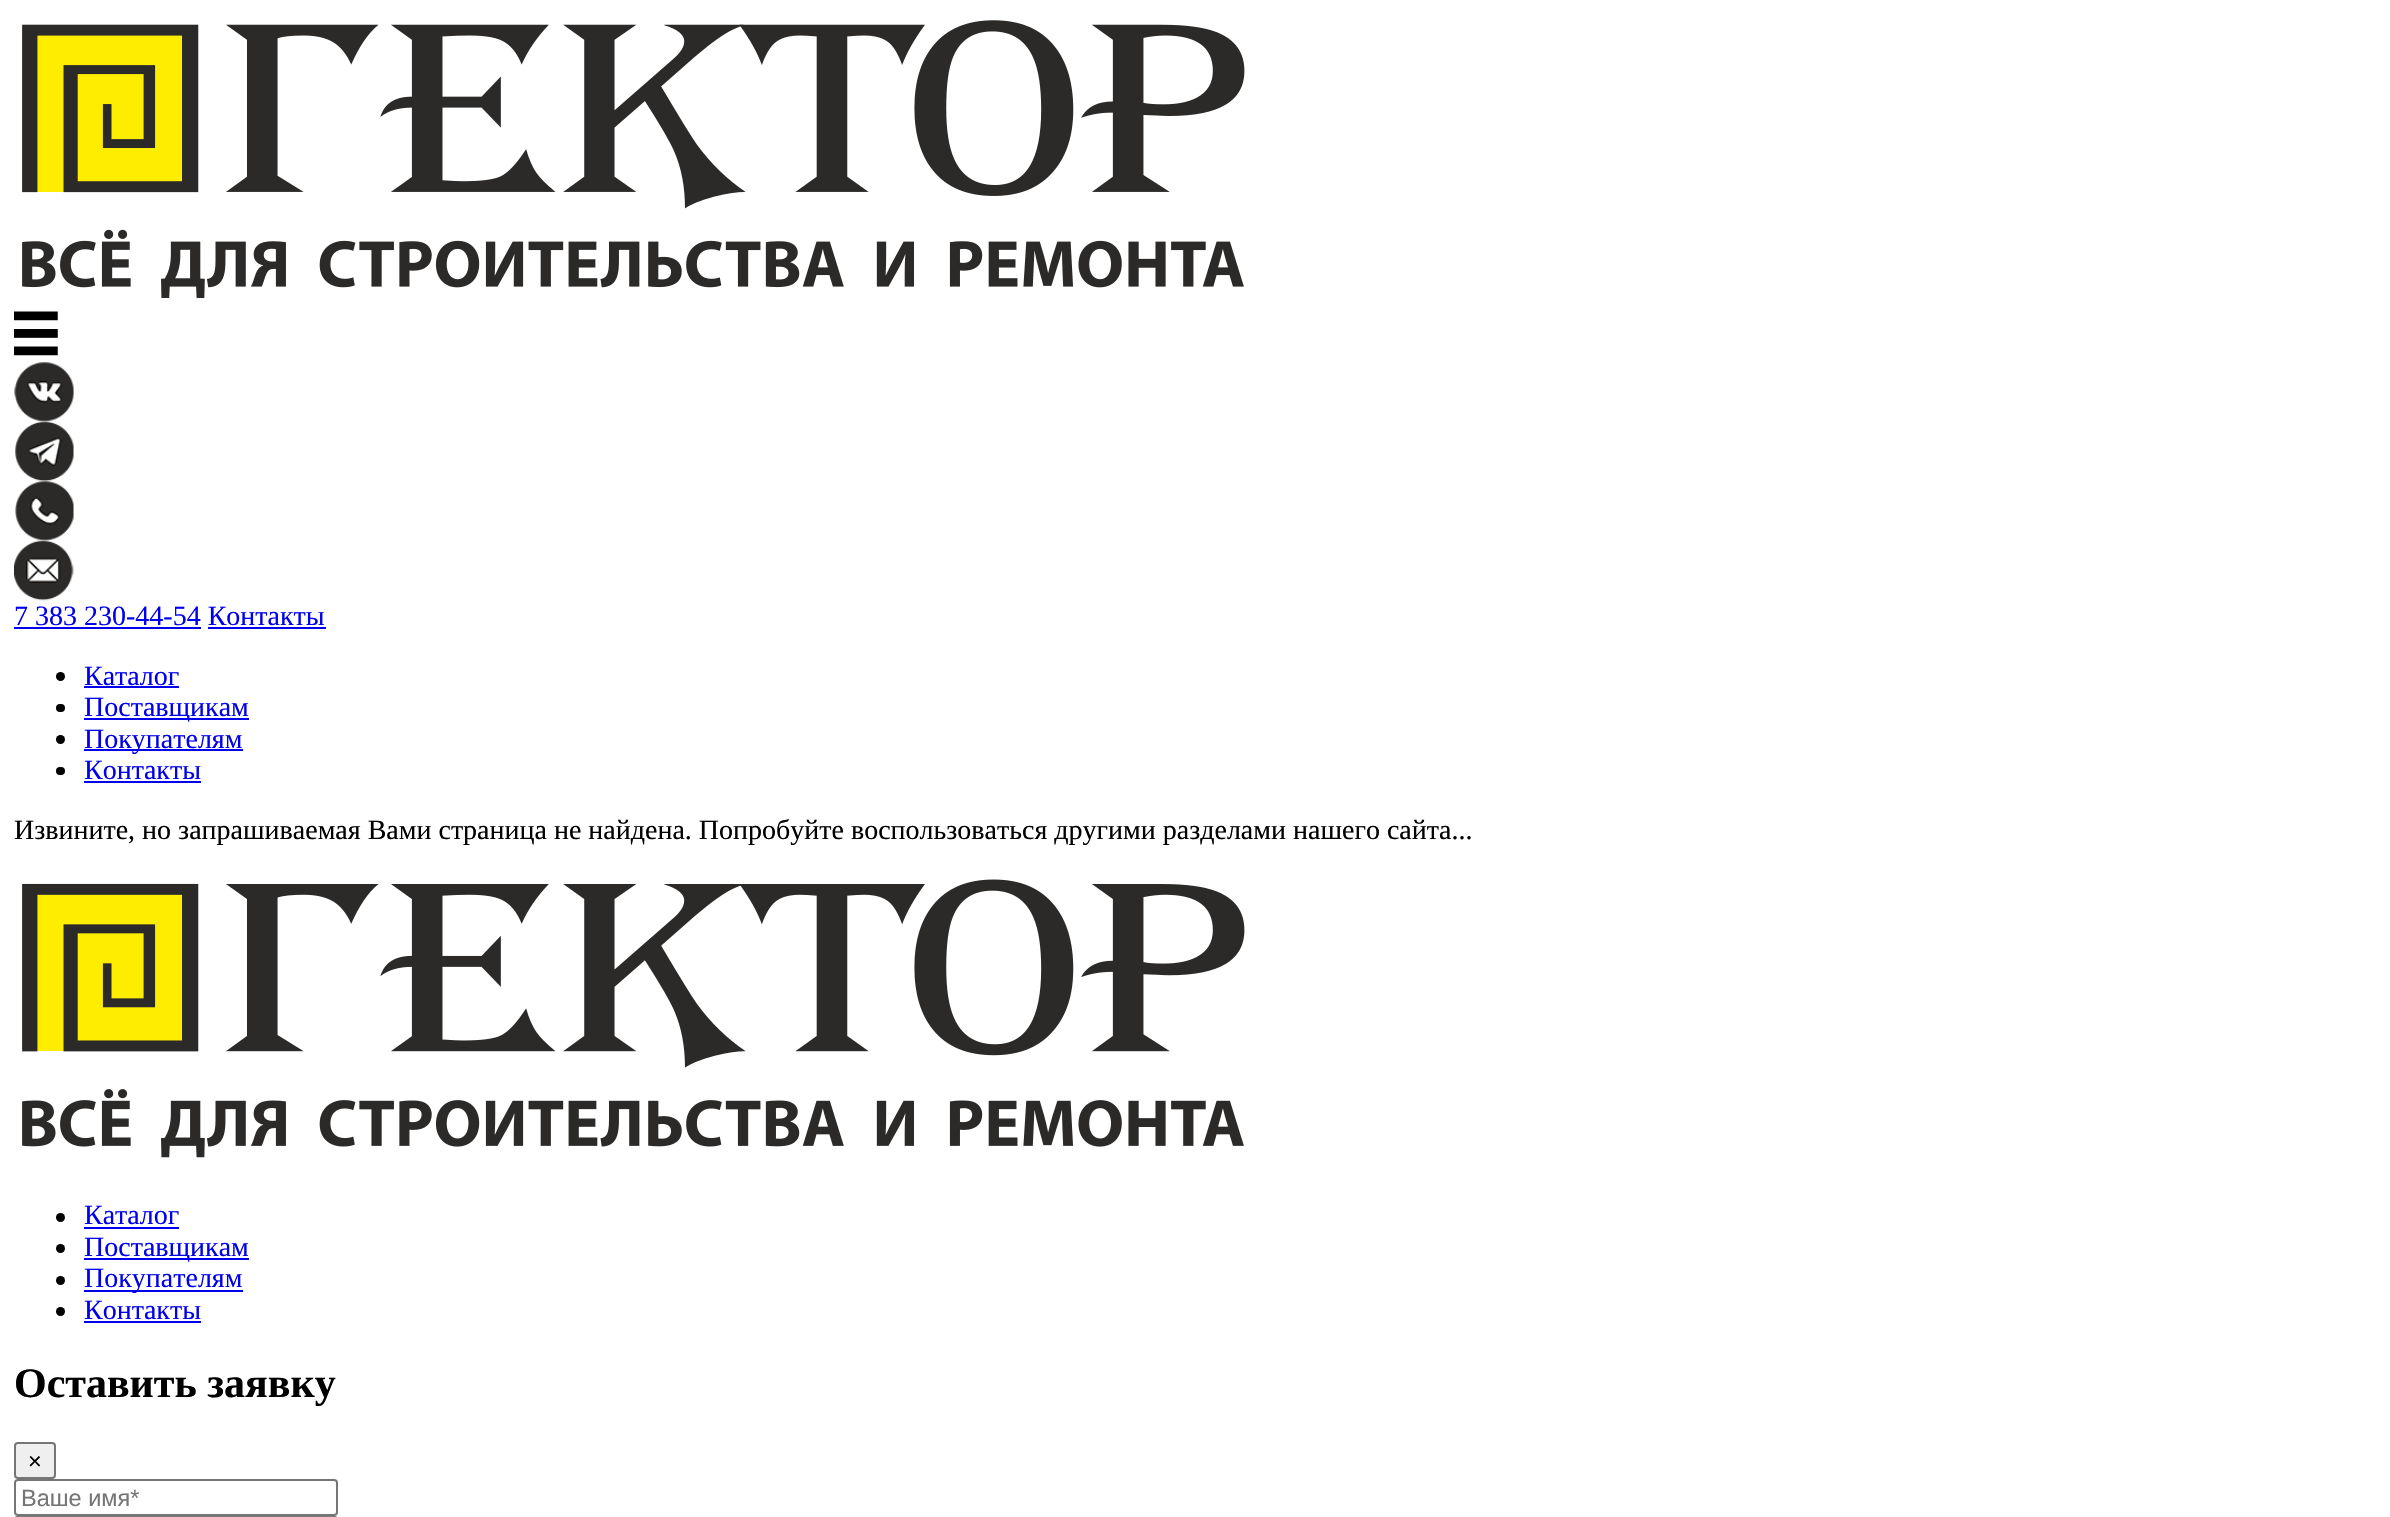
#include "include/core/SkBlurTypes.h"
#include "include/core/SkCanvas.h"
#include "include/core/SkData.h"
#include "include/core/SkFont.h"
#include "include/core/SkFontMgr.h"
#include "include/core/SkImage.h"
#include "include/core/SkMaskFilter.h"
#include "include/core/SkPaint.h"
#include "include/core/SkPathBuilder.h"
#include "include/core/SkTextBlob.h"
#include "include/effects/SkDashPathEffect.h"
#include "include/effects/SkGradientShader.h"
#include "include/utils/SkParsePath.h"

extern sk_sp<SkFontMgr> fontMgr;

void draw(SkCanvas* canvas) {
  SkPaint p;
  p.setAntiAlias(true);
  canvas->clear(SK_ColorWHITE);
  canvas->drawImageRect(SkImages::DeferredFromEncodedData(SkData::MakeFromFileName("images/1.png")), SkRect::MakeLTRB(22, 20, 1245, 298), SkSamplingOptions());
  canvas->drawImageRect(SkImages::DeferredFromEncodedData(SkData::MakeFromFileName("images/2.png")), SkRect::MakeLTRB(14, 311, 58, 356), SkSamplingOptions());
  canvas->drawImageRect(SkImages::DeferredFromEncodedData(SkData::MakeFromFileName("images/3.png")), SkRect::MakeLTRB(14, 362, 74, 422), SkSamplingOptions());
  canvas->drawImageRect(SkImages::DeferredFromEncodedData(SkData::MakeFromFileName("images/4.png")), SkRect::MakeLTRB(15, 421, 74, 482), SkSamplingOptions());
  canvas->drawImageRect(SkImages::DeferredFromEncodedData(SkData::MakeFromFileName("images/5.png")), SkRect::MakeLTRB(15, 481, 74, 541), SkSamplingOptions());
  canvas->drawImageRect(SkImages::DeferredFromEncodedData(SkData::MakeFromFileName("images/6.png")), SkRect::MakeLTRB(14, 540, 74, 601), SkSamplingOptions());
  p.setColor(SkColorSetRGB(0, 0, 238));
  canvas->drawRect(SkRect::MakeLTRB(14, 627, 201, 629), p);
  canvas->drawRect(SkRect::MakeLTRB(208, 627, 326, 629), p);
  p.setColor(SK_ColorBLACK);
  canvas->drawCircle(60.5f, 676.5f, 4.5f, p);
  p.setColor(SkColorSetRGB(0, 0, 238));
  canvas->drawRect(SkRect::MakeLTRB(84, 686, 179, 688), p);
  p.setColor(SK_ColorBLACK);
  canvas->drawRoundRect(SkRect::MakeLTRB(56, 704, 65, 712), 4, 4, p);
  p.setColor(SkColorSetRGB(0, 0, 238));
  canvas->drawRect(SkRect::MakeLTRB(84, 718, 249, 720), p);
  p.setColor(SK_ColorBLACK);
  canvas->drawCircle(60.5f, 739.5f, 4.5f, p);
  p.setColor(SkColorSetRGB(0, 0, 238));
  canvas->drawRect(SkRect::MakeLTRB(84, 749, 243, 751), p);
  p.setColor(SK_ColorBLACK);
  canvas->drawRoundRect(SkRect::MakeLTRB(56, 767, 65, 775), 4, 4, p);
  p.setColor(SkColorSetRGB(0, 0, 238));
  canvas->drawRect(SkRect::MakeLTRB(84, 781, 201, 783), p);
  canvas->drawImageRect(SkImages::DeferredFromEncodedData(SkData::MakeFromFileName("images/7.png")), SkRect::MakeLTRB(22, 879, 1245, 1158), SkSamplingOptions());
  p.setColor(SK_ColorBLACK);
  canvas->drawCircle(60.5f, 1217.5f, 4.5f, p);
  p.setColor(SkColorSetRGB(0, 0, 238));
  canvas->drawRect(SkRect::MakeLTRB(84, 1227, 179, 1229), p);
  p.setColor(SK_ColorBLACK);
  canvas->drawCircle(60.5f, 1248.5f, 4.5f, p);
  p.setColor(SkColorSetRGB(0, 0, 238));
  canvas->drawRect(SkRect::MakeLTRB(84, 1258, 249, 1260), p);
  p.setColor(SK_ColorBLACK);
  canvas->drawCircle(60.5f, 1280.5f, 4.5f, p);
  p.setColor(SkColorSetRGB(0, 0, 238));
  canvas->drawRect(SkRect::MakeLTRB(84, 1290, 243, 1292), p);
  p.setColor(SK_ColorBLACK);
  canvas->drawCircle(60.5f, 1311.5f, 4.5f, p);
  p.setColor(SkColorSetRGB(0, 0, 238));
  canvas->drawRect(SkRect::MakeLTRB(84, 1321, 201, 1323), p);
  p.setColor(SkColorSetRGB(239, 239, 239));
  canvas->drawRoundRect(SkRect::MakeLTRB(15, 1443, 55, 1478), 3, 3, p);
  p.setStyle(SkPaint::kStroke_Style);
  p.setStrokeWidth(2);
  p.setColor(SkColorSetRGB(118, 118, 118));
  canvas->drawRoundRect(SkRect::MakeLTRB(15, 1443, 55, 1478), 3, 3, p);
  canvas->drawRoundRect(SkRect::MakeLTRB(15, 1480, 337, 1515), 3, 3, p);
  canvas->drawRoundRect(SkRect::MakeLTRB(15, 1517, 337, 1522), 3, 3, p);
  SkFont font1(fontMgr->matchFamilyStyle("Liberation Serif", SkFontStyle::Normal()), 28);
  font1.setSubpixel(true);
  p.setStyle(SkPaint::kFill_Style);
  p.setColor(SkColorSetRGB(0, 0, 238));
  canvas->drawString("7 383 230-44-54 Контакты", 14, 625, font1, p);
  canvas->drawString("Каталог", 84, 685, font1, p);
  canvas->drawString("Поставщикам", 84, 716, font1, p);
  canvas->drawString("Покупателям", 84, 748, font1, p);
  canvas->drawString("Контакты", 84, 779, font1, p);
  p.setColor(SK_ColorBLACK);
  canvas->drawString("Извините, но запрашиваемая Вами страница не найдена. Попробуйте воспользоваться другими разделами нашего сайта...", 14, 839, font1, p);
  p.setColor(SkColorSetRGB(0, 0, 238));
  canvas->drawString("Каталог", 84, 1224, font1, p);
  canvas->drawString("Поставщикам", 84, 1256, font1, p);
  canvas->drawString("Покупателям", 84, 1287, font1, p);
  canvas->drawString("Контакты", 84, 1319, font1, p);
  SkFont font2(fontMgr->matchFamilyStyle("Liberation Serif", SkFontStyle::Bold()), 42);
  font2.setSubpixel(true);
  p.setColor(SK_ColorBLACK);
  canvas->drawString("Оставить заявку", 14, 1397, font2, p);
  SkFont font3(fontMgr->matchFamilyStyle("Liberation Sans", SkFontStyle::Normal()), 23.5f);
  font3.setSubpixel(true);
  canvas->drawString("×", 28, 1469, font3, p);
  p.setColor(SkColorSetRGB(117, 117, 117));
  canvas->drawString("Ваше имя*", 21, 1506, font3, p);
}
